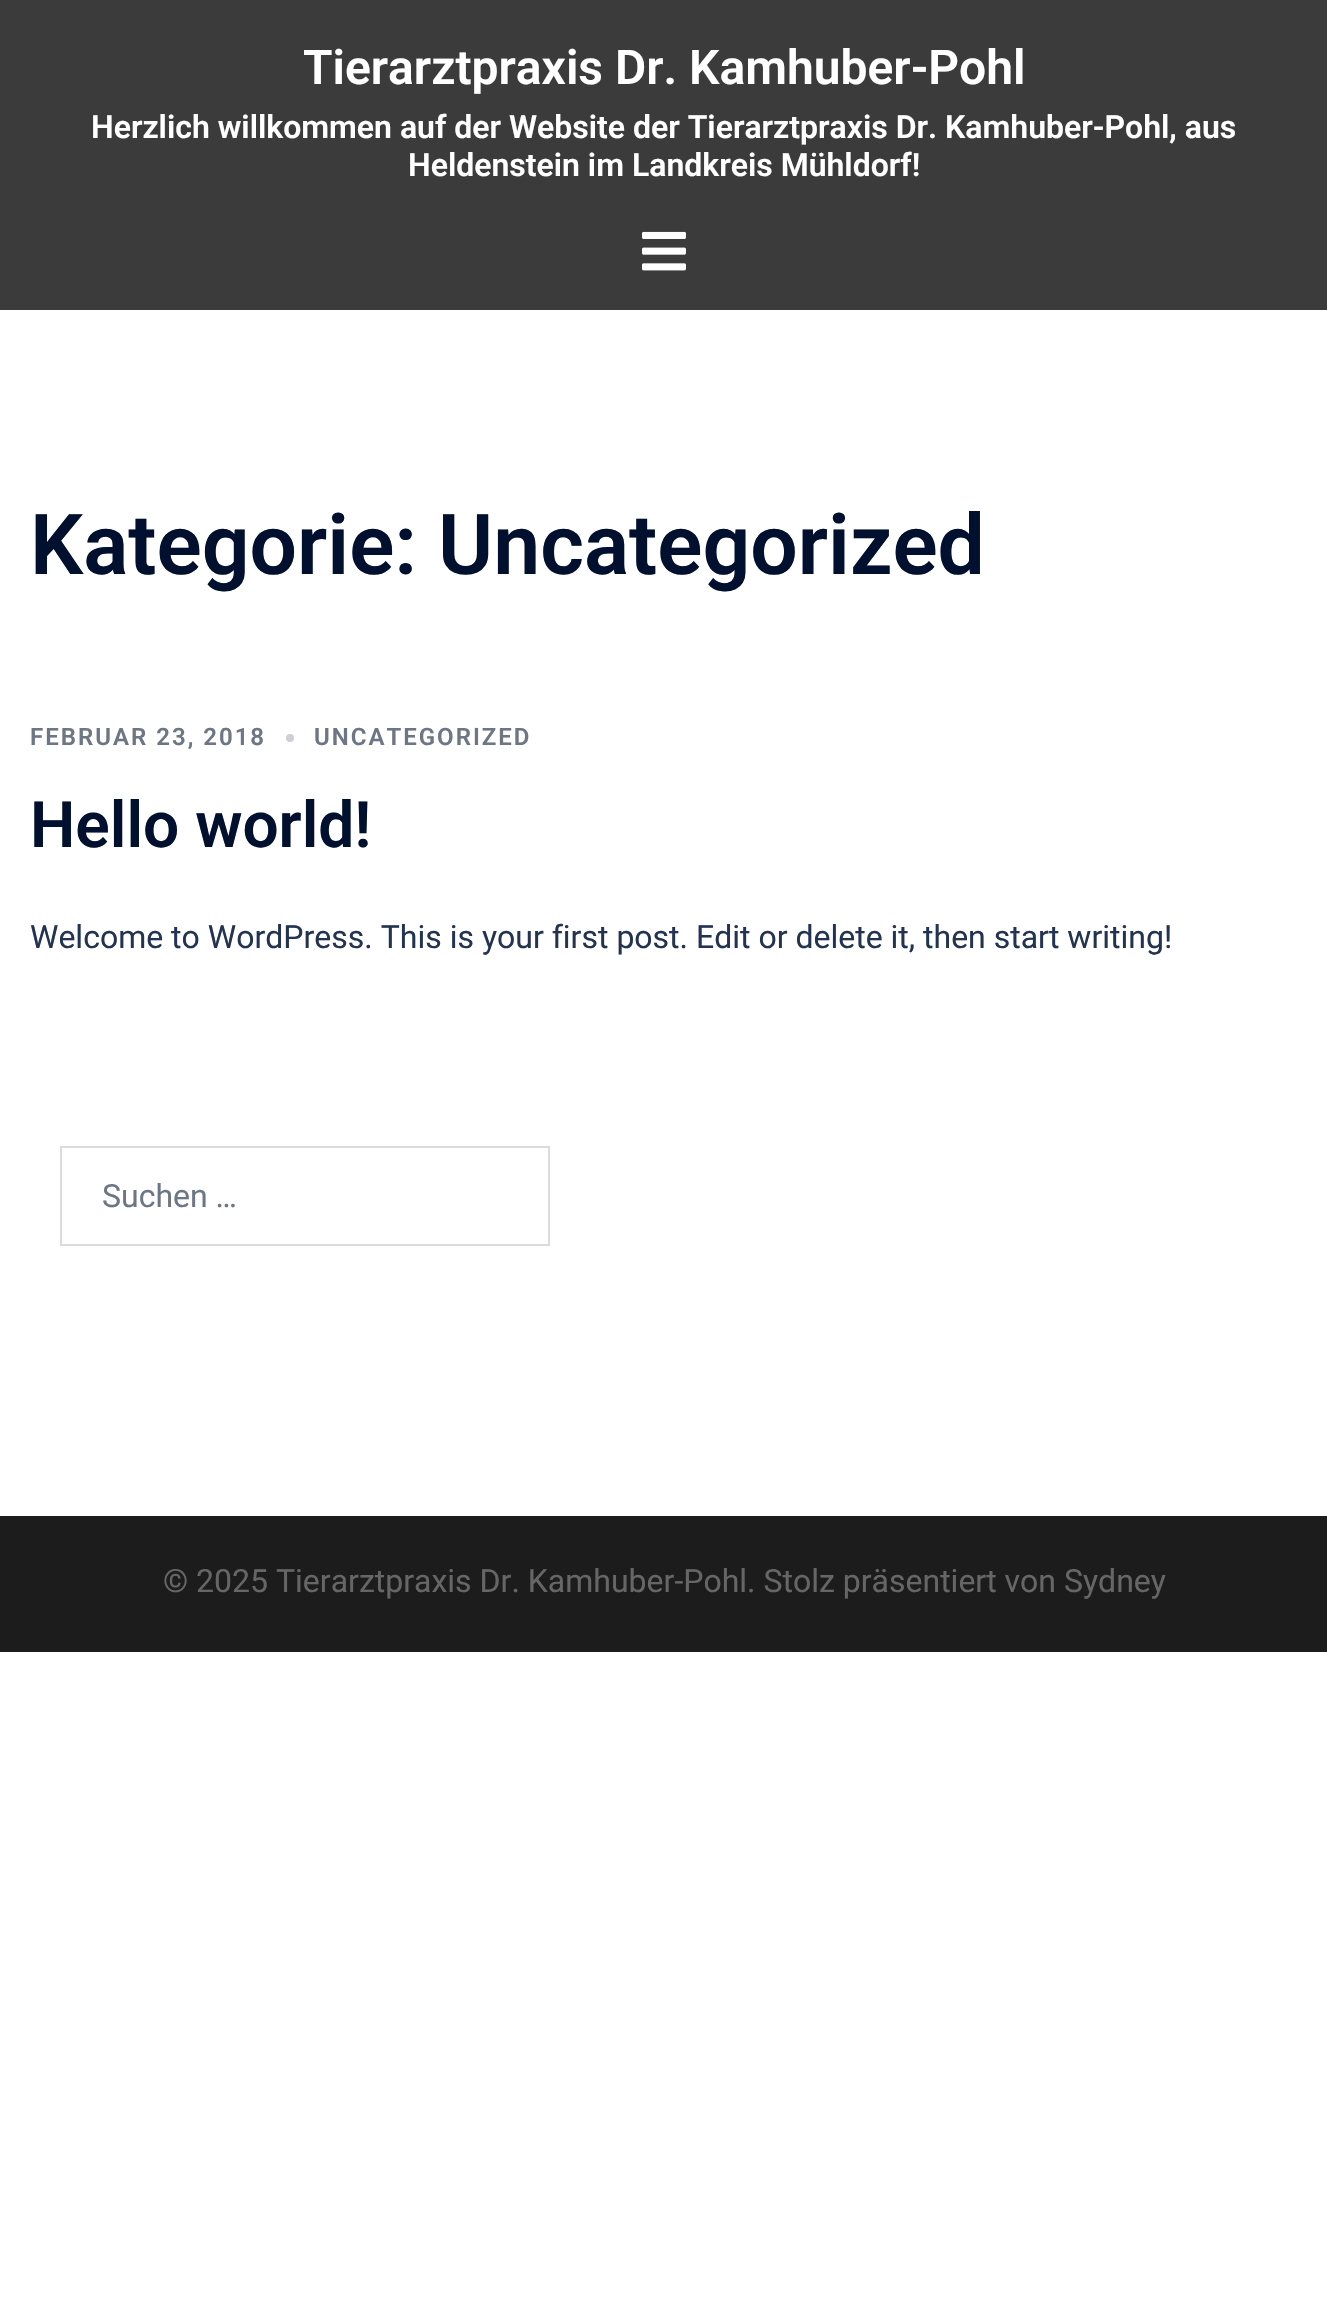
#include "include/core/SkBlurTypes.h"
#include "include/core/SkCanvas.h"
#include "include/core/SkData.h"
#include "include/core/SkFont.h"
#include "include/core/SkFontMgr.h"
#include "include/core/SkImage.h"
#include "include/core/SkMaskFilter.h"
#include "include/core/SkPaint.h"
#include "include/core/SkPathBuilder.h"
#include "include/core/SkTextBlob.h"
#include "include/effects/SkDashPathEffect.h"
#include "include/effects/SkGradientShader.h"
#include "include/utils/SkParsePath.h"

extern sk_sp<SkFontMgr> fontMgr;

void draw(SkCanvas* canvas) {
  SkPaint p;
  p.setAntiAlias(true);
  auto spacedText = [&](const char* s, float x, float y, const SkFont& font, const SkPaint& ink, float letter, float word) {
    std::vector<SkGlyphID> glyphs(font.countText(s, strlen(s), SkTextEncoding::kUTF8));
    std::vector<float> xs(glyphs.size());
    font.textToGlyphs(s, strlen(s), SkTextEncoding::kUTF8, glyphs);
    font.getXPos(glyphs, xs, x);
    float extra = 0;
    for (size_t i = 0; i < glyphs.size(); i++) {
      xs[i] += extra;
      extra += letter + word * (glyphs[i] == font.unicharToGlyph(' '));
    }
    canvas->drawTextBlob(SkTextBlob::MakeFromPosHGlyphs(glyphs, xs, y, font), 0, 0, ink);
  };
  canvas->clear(SK_ColorWHITE);
  p.setColor(SkColorSetRGB(59, 59, 59));
  canvas->drawRect(SkRect::MakeLTRB(0, 0, 1327, 310), p);
  canvas->drawImageRect(SkImages::DeferredFromEncodedData(SkData::MakeFromFileName("images/1.png")), SkRect::MakeLTRB(642, 231, 686, 271), SkSamplingOptions());
  p.setColor(SkColorSetRGB(204, 207, 213));
  canvas->drawCircle(290, 738, 4, p);
  p.setStyle(SkPaint::kStroke_Style);
  p.setStrokeWidth(2);
  p.setColor(SkColorSetRGB(219, 219, 219));
  canvas->drawRect(SkRect::MakeLTRB(61, 1147, 549, 1245), p);
  p.setStyle(SkPaint::kFill_Style);
  p.setColor(SkColorSetRGB(28, 28, 28));
  canvas->drawRect(SkRect::MakeLTRB(0, 1516, 1327, 1652), p);
  SkFont font1(fontMgr->matchFamilyStyle("Roboto", SkFontStyle(600, SkFontStyle::kNormal_Width, SkFontStyle::kUpright_Slant)), 48);
  font1.setSubpixel(true);
  p.setColor(SK_ColorWHITE);
  canvas->drawString("Tierarztpraxis Dr. Kamhuber-Pohl", 303, 84, font1, p);
  SkFont font2(fontMgr->matchFamilyStyle("Roboto", SkFontStyle(600, SkFontStyle::kNormal_Width, SkFontStyle::kUpright_Slant)), 32);
  font2.setSubpixel(true);
  canvas->drawString("Herzlich willkommen auf der Website der Tierarztpraxis Dr. Kamhuber-Pohl, aus", 91, 138, font2, p);
  canvas->drawString("Heldenstein im Landkreis Mühldorf!", 408, 176, font2, p);
  SkFont font3(fontMgr->matchFamilyStyle("Roboto", SkFontStyle(600, SkFontStyle::kNormal_Width, SkFontStyle::kUpright_Slant)), 84);
  font3.setSubpixel(true);
  p.setColor(SkColorSetRGB(0, 16, 46));
  canvas->drawString("Kategorie: Uncategorized", 30, 574, font3, p);
  SkFont font4(fontMgr->matchFamilyStyle("Roboto", SkFontStyle(600, SkFontStyle::kNormal_Width, SkFontStyle::kUpright_Slant)), 24);
  font4.setSubpixel(true);
  p.setColor(SkColorSetRGB(109, 118, 133));
  spacedText("FEBRUAR 23, 2018", 30, 745, font4, p, 2, 0);
  spacedText("UNCATEGORIZED", 314, 745, font4, p, 2, 0);
  SkFont font5(fontMgr->matchFamilyStyle("Roboto", SkFontStyle(600, SkFontStyle::kNormal_Width, SkFontStyle::kUpright_Slant)), 64);
  font5.setSubpixel(true);
  p.setColor(SkColorSetRGB(0, 16, 46));
  canvas->drawString("Hello world!", 30, 847, font5, p);
  SkFont font6(fontMgr->matchFamilyStyle("Roboto", SkFontStyle::Normal()), 32);
  font6.setSubpixel(true);
  p.setColor(SkColorSetRGB(35, 52, 82));
  canvas->drawString("Welcome to WordPress. This is your first post. Edit or delete it, then start writing!", 30, 948, font6, p);
  p.setColor(SkColorSetRGB(109, 118, 133));
  canvas->drawString("Suchen …", 102, 1207, font6, p);
  p.setColor(SkColorSetRGB(102, 102, 102));
  canvas->drawString("© 2025 Tierarztpraxis Dr. Kamhuber-Pohl. Stolz präsentiert von Sydney", 163, 1592, font6, p);
}
